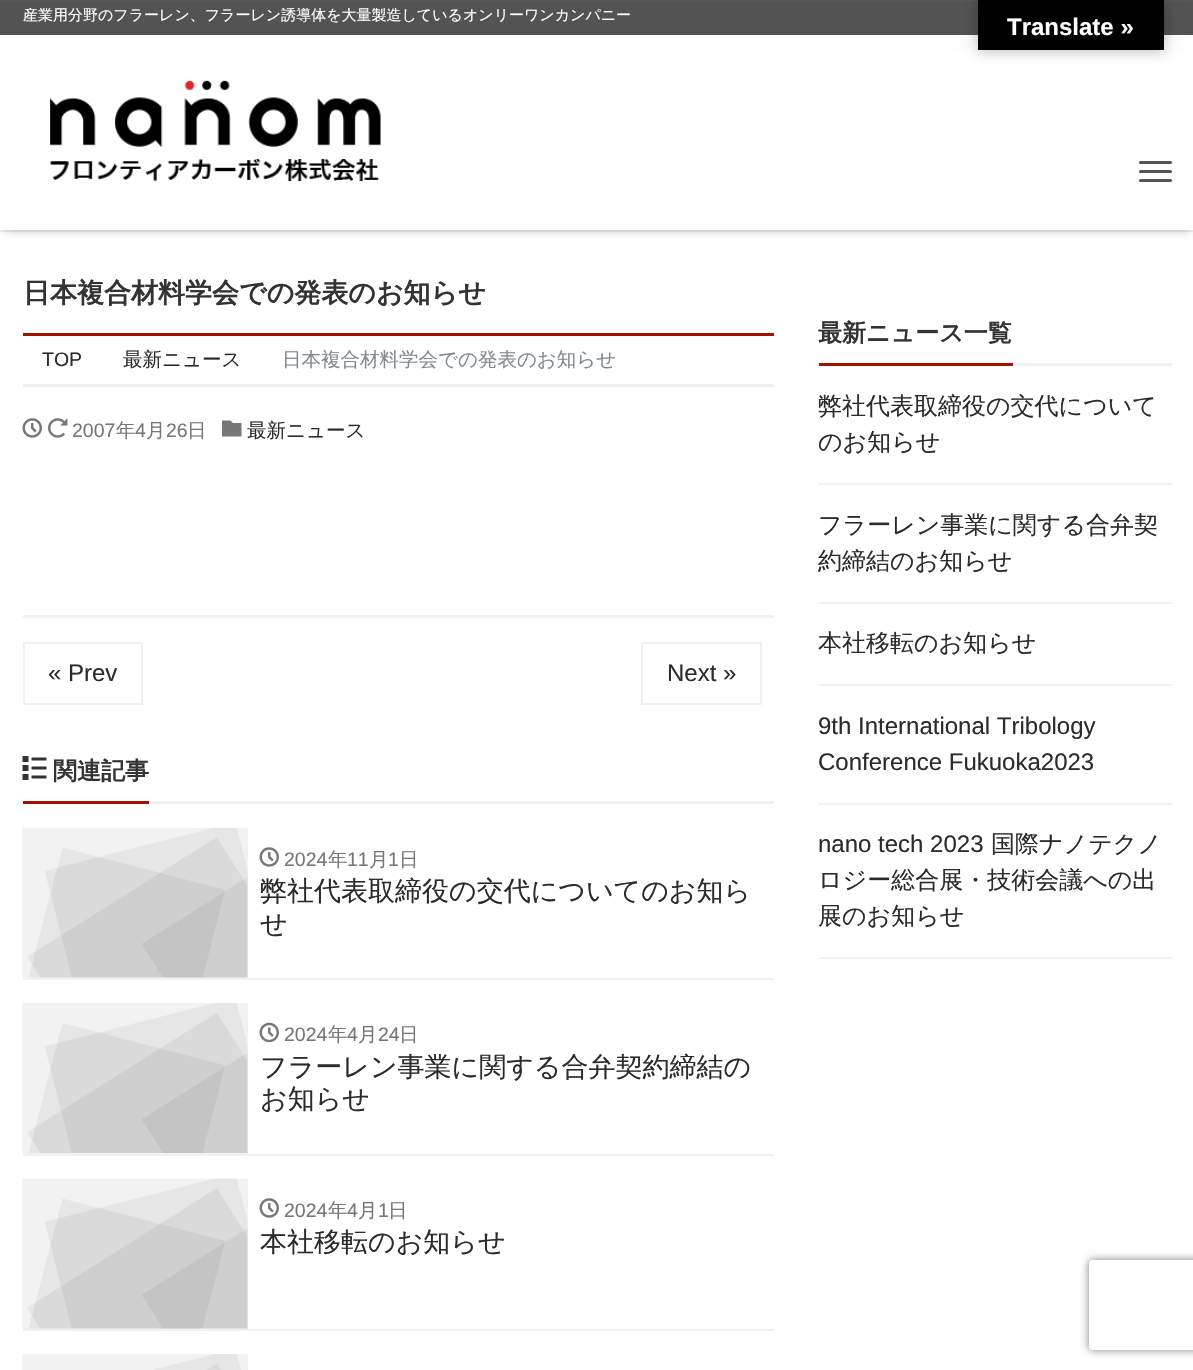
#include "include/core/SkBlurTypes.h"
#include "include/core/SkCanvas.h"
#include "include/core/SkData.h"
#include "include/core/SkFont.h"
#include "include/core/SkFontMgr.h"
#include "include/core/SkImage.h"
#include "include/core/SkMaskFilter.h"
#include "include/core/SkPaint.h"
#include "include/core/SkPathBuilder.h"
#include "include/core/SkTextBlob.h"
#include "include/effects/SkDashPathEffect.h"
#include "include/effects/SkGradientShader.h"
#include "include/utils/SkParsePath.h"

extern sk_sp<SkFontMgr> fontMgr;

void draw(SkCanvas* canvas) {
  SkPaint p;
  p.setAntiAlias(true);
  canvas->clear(SK_ColorWHITE);
  p.setColor(SkColorSetRGB(83, 83, 83));
  canvas->drawRect(SkRect::MakeLTRB(0, 0, 1193, 35), p);
  p.setColor(SkColorSetARGB(26, 119, 119, 119));
  canvas->drawRect(SkRect::MakeLTRB(0, 0, 1193, 1), p);
  canvas->save();
  canvas->clipPath(SkPathBuilder(SkPathFillType::kEvenOdd).moveTo(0, 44).lineTo(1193, 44).lineTo(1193, 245).lineTo(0, 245).close().moveTo(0, 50).lineTo(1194, 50).lineTo(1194, 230).lineTo(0, 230).close().detach(), true);
  p.setColor(SkColorSetARGB(77, 0, 0, 0));
  p.setMaskFilter(SkMaskFilter::MakeBlur(kNormal_SkBlurStyle, 4.5f));
  canvas->drawRect(SkRect::MakeLTRB(5, 59, 1190, 230), p);
  p.setMaskFilter(nullptr);
  canvas->restore();
  canvas->drawImageRect(SkImages::DeferredFromEncodedData(SkData::MakeFromFileName("images/1.png")), SkRect::MakeLTRB(50, 80, 381, 182), SkSamplingOptions());
  p.setColor(SkColorSetARGB(26, 119, 119, 119));
  canvas->drawRect(SkRect::MakeLTRB(0, 230, 1193, 232), p);
  p.setColor(SkColorSetRGB(85, 85, 85));
  canvas->drawRoundRect(SkRect::MakeLTRB(1139, 161, 1172, 164), 1.5f, 1.5f, p);
  canvas->drawRoundRect(SkRect::MakeLTRB(1139, 170, 1172, 173), 1.5f, 1.5f, p);
  canvas->drawRoundRect(SkRect::MakeLTRB(1139, 179, 1172, 182), 1.5f, 1.5f, p);
  p.setColor(SkColorSetRGB(163, 20, 0));
  canvas->drawRect(SkRect::MakeLTRB(23, 333, 774, 336), p);
  p.setColor(SkColorSetRGB(241, 241, 241));
  canvas->drawRect(SkRect::MakeLTRB(23, 384, 774, 387), p);
  canvas->drawImageRect(SkImages::DeferredFromEncodedData(SkData::MakeFromFileName("images/2.png")), SkRect::MakeLTRB(22, 418, 42, 438), SkSamplingOptions());
  canvas->drawImageRect(SkImages::DeferredFromEncodedData(SkData::MakeFromFileName("images/3.png")), SkRect::MakeLTRB(48, 418, 68, 438), SkSamplingOptions());
  p.setColor(SkColorSetRGB(119, 119, 119));
  canvas->drawPath(SkPathBuilder().moveTo(230.5f, 420.5f).lineTo(233, 423).lineTo(241.5f, 423).lineTo(241.5f, 436.5f).lineTo(222, 436.5f).lineTo(222, 420.5f).close().detach(), p);
  p.setColor(SkColorSetRGB(241, 241, 241));
  canvas->drawRect(SkRect::MakeLTRB(23, 615, 774, 618), p);
  p.setStyle(SkPaint::kStroke_Style);
  p.setStrokeWidth(2);
  canvas->drawRect(SkRect::MakeLTRB(24, 643, 142, 704), p);
  canvas->drawRect(SkRect::MakeLTRB(642, 643, 761, 704), p);
  p.setStyle(SkPaint::kFill_Style);
  canvas->drawRect(SkRect::MakeLTRB(149, 801, 774, 804), p);
  p.setColor(SkColorSetRGB(163, 20, 0));
  canvas->drawRect(SkRect::MakeLTRB(23, 801, 149, 804), p);
  canvas->drawImageRect(SkImages::DeferredFromEncodedData(SkData::MakeFromFileName("images/4.png")), SkRect::MakeLTRB(22, 756, 47, 780), SkSamplingOptions());
  p.setColor(SkColorSetRGB(241, 241, 241));
  canvas->drawRect(SkRect::MakeLTRB(23, 978, 774, 980), p);
  canvas->drawRect(SkRect::MakeLTRB(23, 828, 248, 978), p);
  canvas->drawImageRect(SkImages::DeferredFromEncodedData(SkData::MakeFromFileName("images/5.png")), SkRect::MakeLTRB(22, 827, 248, 978), SkSamplingOptions());
  canvas->drawImageRect(SkImages::DeferredFromEncodedData(SkData::MakeFromFileName("images/2.png")), SkRect::MakeLTRB(259, 847, 279, 867), SkSamplingOptions());
  canvas->drawRect(SkRect::MakeLTRB(23, 1154, 774, 1156), p);
  canvas->drawRect(SkRect::MakeLTRB(23, 1004, 248, 1154), p);
  canvas->drawImageRect(SkImages::DeferredFromEncodedData(SkData::MakeFromFileName("images/6.png")), SkRect::MakeLTRB(22, 1003, 248, 1153), SkSamplingOptions());
  canvas->drawImageRect(SkImages::DeferredFromEncodedData(SkData::MakeFromFileName("images/7.png")), SkRect::MakeLTRB(259, 1022, 279, 1043), SkSamplingOptions());
  canvas->drawRect(SkRect::MakeLTRB(23, 1329, 774, 1331), p);
  canvas->drawRect(SkRect::MakeLTRB(23, 1179, 248, 1329), p);
  canvas->drawImageRect(SkImages::DeferredFromEncodedData(SkData::MakeFromFileName("images/5.png")), SkRect::MakeLTRB(22, 1178, 248, 1329), SkSamplingOptions());
  canvas->drawImageRect(SkImages::DeferredFromEncodedData(SkData::MakeFromFileName("images/2.png")), SkRect::MakeLTRB(259, 1198, 279, 1218), SkSamplingOptions());
  canvas->drawRect(SkRect::MakeLTRB(247, 1355, 248, 1370), p);
  canvas->drawImageRect(SkImages::DeferredFromEncodedData(SkData::MakeFromFileName("images/8.png")), SkRect::MakeLTRB(22, 1354, 248, 1370), SkSamplingOptions());
  canvas->drawRect(SkRect::MakeLTRB(1013, 363, 1172, 366), p);
  p.setColor(SkColorSetRGB(163, 20, 0));
  canvas->drawRect(SkRect::MakeLTRB(819, 363, 1013, 366), p);
  p.setColor(SkColorSetRGB(241, 241, 241));
  canvas->drawRect(SkRect::MakeLTRB(819, 483, 1172, 485), p);
  canvas->drawRect(SkRect::MakeLTRB(819, 602, 1172, 604), p);
  canvas->drawRect(SkRect::MakeLTRB(819, 684, 1172, 686), p);
  canvas->drawRect(SkRect::MakeLTRB(819, 803, 1172, 805), p);
  canvas->drawRect(SkRect::MakeLTRB(819, 957, 1172, 959), p);
  p.setColor(SkColorSetARGB(77, 0, 0, 0));
  p.setMaskFilter(SkMaskFilter::MakeBlur(kNormal_SkBlurStyle, 7));
  canvas->drawRect(SkRect::MakeLTRB(978, 0, 1164, 50), p);
  p.setMaskFilter(nullptr);
  p.setColor(SK_ColorBLACK);
  canvas->drawRect(SkRect::MakeLTRB(978, 0, 1164, 50), p);
  canvas->save();
  canvas->clipPath(SkPathBuilder(SkPathFillType::kEvenOdd).moveTo(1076, 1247).lineTo(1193, 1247).lineTo(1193, 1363).lineTo(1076, 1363).close().moveTo(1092, 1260).lineTo(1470, 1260).cubicTo(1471.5f, 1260, 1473, 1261.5f, 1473, 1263).lineTo(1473, 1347).cubicTo(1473, 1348.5f, 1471.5f, 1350, 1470, 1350).lineTo(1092, 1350).cubicTo(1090.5f, 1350, 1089, 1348.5f, 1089, 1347).lineTo(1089, 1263).cubicTo(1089, 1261.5f, 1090.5f, 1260, 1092, 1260).close().detach(), true);
  p.setColor(SkColorSetRGB(128, 128, 128));
  p.setMaskFilter(SkMaskFilter::MakeBlur(kNormal_SkBlurStyle, 4));
  canvas->drawRoundRect(SkRect::MakeLTRB(1089, 1260, 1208, 1350), 3, 3, p);
  p.setMaskFilter(nullptr);
  canvas->restore();
  canvas->save();
  canvas->clipRect(SkRect::MakeLTRB(0, 8, 896, 23));
  SkFont font1(fontMgr->matchFamilyStyle("WenQuanYi Zen Hei", SkFontStyle(500, SkFontStyle::kNormal_Width, SkFontStyle::kUpright_Slant)), 15);
  font1.setSubpixel(true);
  p.setColor(SK_ColorWHITE);
  canvas->drawString("産業用分野のフラーレン、フラーレン誘導体を大量製造しているオンリーワンカンパニー", 23, 20, font1, p);
  canvas->restore();
  SkFont font2(fontMgr->matchFamilyStyle("WenQuanYi Zen Hei", SkFontStyle::Bold()), 27);
  font2.setSubpixel(true);
  p.setColor(SkColorSetRGB(51, 51, 51));
  canvas->drawString("日本複合材料学会での発表のお知らせ", 23, 302, font2, p);
  SkFont font3(fontMgr->matchFamilyStyle("Liberation Sans", SkFontStyle::Normal()), 19.5f);
  font3.setSubpixel(true);
  p.setColor(SkColorSetRGB(43, 43, 43));
  canvas->drawString("TOP", 42, 366, font3, p);
  SkFont font4(fontMgr->matchFamilyStyle("WenQuanYi Zen Hei", SkFontStyle(500, SkFontStyle::kNormal_Width, SkFontStyle::kUpright_Slant)), 19.5f);
  font4.setSubpixel(true);
  canvas->drawString("最新ニュース", 123, 366, font4, p);
  p.setColor(SkColorSetRGB(129, 138, 145));
  canvas->drawString("日本複合材料学会での発表のお知らせ", 282, 366, font4, p);
  p.setColor(SkColorSetRGB(119, 119, 119));
  canvas->drawString("2007", 72, 437, font3, p);
  canvas->drawString("年", 116, 437, font4, p);
  canvas->drawString("4", 135, 437, font3, p);
  canvas->drawString("月", 146, 437, font4, p);
  canvas->drawString("26", 166, 437, font3, p);
  canvas->drawString("日", 187, 437, font4, p);
  p.setColor(SkColorSetRGB(43, 43, 43));
  canvas->drawString("最新ニュース", 247, 437, font4, p);
  SkFont font5(fontMgr->matchFamilyStyle("Liberation Sans", SkFontStyle::Normal()), 24);
  font5.setSubpixel(true);
  canvas->drawString("« Prev", 48, 681, font5, p);
  canvas->drawString("Next »", 667, 681, font5, p);
  SkFont font6(fontMgr->matchFamilyStyle("WenQuanYi Zen Hei", SkFontStyle::Bold()), 24);
  font6.setSubpixel(true);
  p.setColor(SkColorSetRGB(51, 51, 51));
  canvas->drawString("関連記事", 53, 779, font6, p);
  p.setColor(SkColorSetRGB(119, 119, 119));
  canvas->drawString("2024", 284, 866, font3, p);
  canvas->drawString("年", 328, 866, font4, p);
  canvas->drawString("11", 347, 866, font3, p);
  canvas->drawString("月", 369, 866, font4, p);
  canvas->drawString("1", 388, 866, font3, p);
  canvas->drawString("日", 399, 866, font4, p);
  SkFont font7(fontMgr->matchFamilyStyle("WenQuanYi Zen Hei", SkFontStyle(500, SkFontStyle::kNormal_Width, SkFontStyle::kUpright_Slant)), 27);
  font7.setSubpixel(true);
  p.setColor(SkColorSetRGB(43, 43, 43));
  canvas->drawString("弊社代表取締役の交代についてのお知ら", 260, 900, font7, p);
  canvas->drawString("せ", 260, 933, font7, p);
  p.setColor(SkColorSetRGB(119, 119, 119));
  canvas->drawString("2024", 284, 1041, font3, p);
  canvas->drawString("年", 328, 1041, font4, p);
  canvas->drawString("4", 347, 1041, font3, p);
  canvas->drawString("月", 358, 1041, font4, p);
  canvas->drawString("24", 378, 1041, font3, p);
  canvas->drawString("日", 399, 1041, font4, p);
  p.setColor(SkColorSetRGB(43, 43, 43));
  canvas->drawString("フラーレン事業に関する合弁契約締結の", 260, 1076, font7, p);
  canvas->drawString("お知らせ", 260, 1108, font7, p);
  p.setColor(SkColorSetRGB(119, 119, 119));
  canvas->drawString("2024", 284, 1217, font3, p);
  canvas->drawString("年", 328, 1217, font4, p);
  canvas->drawString("4", 347, 1217, font3, p);
  canvas->drawString("月", 358, 1217, font4, p);
  canvas->drawString("1", 378, 1217, font3, p);
  canvas->drawString("日", 388, 1217, font4, p);
  p.setColor(SkColorSetRGB(43, 43, 43));
  canvas->drawString("本社移転のお知らせ", 260, 1251, font7, p);
  p.setColor(SkColorSetRGB(51, 51, 51));
  canvas->drawString("最新ニュース一覧", 818, 341, font6, p);
  SkFont font8(fontMgr->matchFamilyStyle("WenQuanYi Zen Hei", SkFontStyle(500, SkFontStyle::kNormal_Width, SkFontStyle::kUpright_Slant)), 24);
  font8.setSubpixel(true);
  p.setColor(SkColorSetRGB(43, 43, 43));
  canvas->drawString("弊社代表取締役の交代について", 818, 414, font8, p);
  canvas->drawString("のお知らせ", 818, 450, font8, p);
  canvas->drawString("フラーレン事業に関する合弁契", 818, 533, font8, p);
  canvas->drawString("約締結のお知らせ", 818, 569, font8, p);
  canvas->drawString("本社移転のお知らせ", 818, 651, font8, p);
  canvas->drawString("9th International Tribology", 818, 734, font5, p);
  canvas->drawString("Conference Fukuoka2023", 818, 770, font5, p);
  canvas->drawString("nano tech 2023", 818, 852, font5, p);
  canvas->drawString("国際ナノテクノ", 991, 852, font8, p);
  canvas->drawString("ロジー総合展・技術会議への出", 818, 888, font8, p);
  canvas->drawString("展のお知らせ", 818, 924, font8, p);
  SkFont font9(fontMgr->matchFamilyStyle("Liberation Sans", SkFontStyle::Bold()), 24);
  font9.setSubpixel(true);
  p.setColor(SK_ColorWHITE);
  canvas->drawString("Translate »", 1007, 35, font9, p);
}
